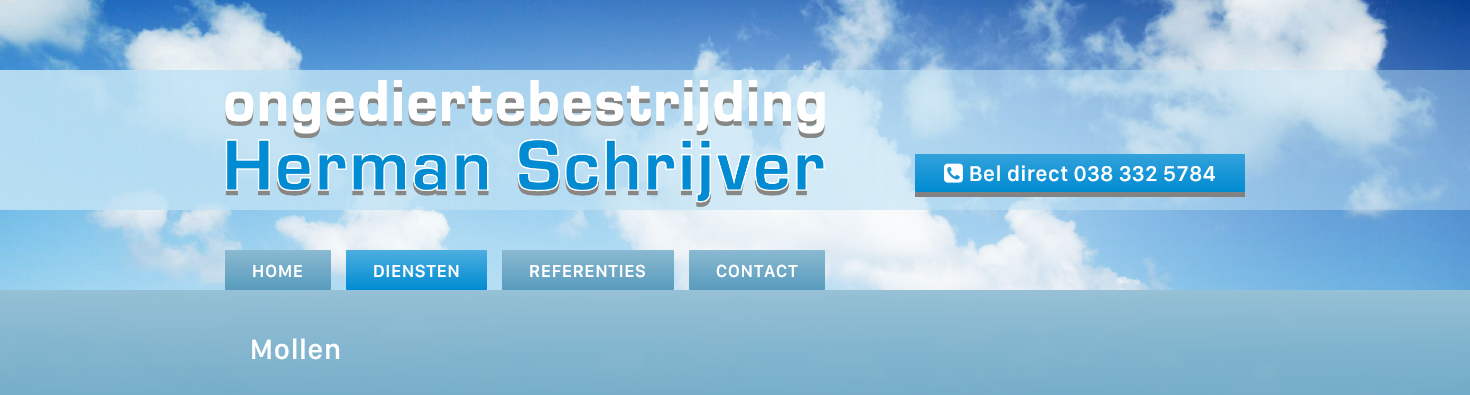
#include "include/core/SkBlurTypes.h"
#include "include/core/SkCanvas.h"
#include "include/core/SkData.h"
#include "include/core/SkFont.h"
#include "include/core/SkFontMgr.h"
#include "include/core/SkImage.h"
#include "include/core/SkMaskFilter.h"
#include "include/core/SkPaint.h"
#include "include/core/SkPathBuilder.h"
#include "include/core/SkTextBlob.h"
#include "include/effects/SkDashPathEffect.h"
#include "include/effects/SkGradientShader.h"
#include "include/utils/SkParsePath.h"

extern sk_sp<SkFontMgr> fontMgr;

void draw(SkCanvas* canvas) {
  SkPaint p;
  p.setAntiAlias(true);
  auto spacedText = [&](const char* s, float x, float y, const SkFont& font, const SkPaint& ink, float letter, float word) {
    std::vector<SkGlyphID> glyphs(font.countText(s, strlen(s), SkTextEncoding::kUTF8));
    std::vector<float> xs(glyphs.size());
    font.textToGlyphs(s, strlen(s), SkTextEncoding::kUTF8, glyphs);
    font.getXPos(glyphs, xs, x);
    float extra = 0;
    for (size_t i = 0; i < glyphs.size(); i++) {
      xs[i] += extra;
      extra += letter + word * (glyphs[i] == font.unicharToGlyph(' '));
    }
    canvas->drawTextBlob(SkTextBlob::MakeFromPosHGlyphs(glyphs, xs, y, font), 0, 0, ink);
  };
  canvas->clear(SK_ColorWHITE);
  canvas->drawImageRect(SkImages::DeferredFromEncodedData(SkData::MakeFromFileName("images/1.png")), SkRect::MakeLTRB(0, 0, 1470, 395), SkSamplingOptions());
  canvas->drawImageRect(SkImages::DeferredFromEncodedData(SkData::MakeFromFileName("images/2.png")), SkRect::MakeLTRB(225, 80, 825, 207), SkSamplingOptions());
  p.setColor(SkColorSetRGB(130, 130, 130));
  canvas->drawPath(SkPathBuilder().moveTo(915, 191).lineTo(915, 196).cubicTo(915, 197, 915, 197, 916, 197).lineTo(1244, 197).cubicTo(1245, 197, 1245, 197, 1245, 196).lineTo(1245, 191).lineTo(1244, 192).lineTo(916, 192).close().detach(), p);
  {
    const SkColor colors[] = {SkColorSetRGB(51, 162, 219), SkColorSetRGB(0, 139, 210)};
    const float stops[] = {0, 1};
    const SkPoint ends[] = {{1080, 154}, {1080, 192}};
    p.setShader(SkGradientShader::MakeLinear(ends, colors, stops, 2, SkTileMode::kClamp));
    p.setAlpha(255);
  }
  canvas->drawRoundRect(SkRect::MakeLTRB(915, 154, 1245, 192), 1, 1, p);
  canvas->drawImageRect(SkImages::DeferredFromEncodedData(SkData::MakeFromFileName("images/3.png")), SkRect::MakeLTRB(944, 163, 963, 183), SkSamplingOptions());
  p.setShader(nullptr);
  p.setColor(SkColorSetRGB(88, 155, 189));
  canvas->drawRoundRect(SkRect::MakeLTRB(225, 250, 331, 290), 1, 1, p);
  {
    const SkColor colors[] = {SkColorSetARGB(77, 255, 255, 255), SkColorSetARGB(0, 255, 255, 255)};
    const float stops[] = {0, 1};
    const SkPoint ends[] = {{278, 250}, {278, 290}};
    p.setShader(SkGradientShader::MakeLinear(ends, colors, stops, 2, SkTileMode::kClamp));
    p.setAlpha(255);
  }
  canvas->drawRoundRect(SkRect::MakeLTRB(225, 250, 331, 290), 1, 1, p);
  p.setShader(nullptr);
  p.setColor(SkColorSetRGB(0, 139, 210));
  canvas->drawRoundRect(SkRect::MakeLTRB(346, 250, 487, 290), 1, 1, p);
  {
    const SkColor colors[] = {SkColorSetARGB(77, 255, 255, 255), SkColorSetARGB(0, 255, 255, 255)};
    const float stops[] = {0, 1};
    const SkPoint ends[] = {{417, 250}, {417, 290}};
    p.setShader(SkGradientShader::MakeLinear(ends, colors, stops, 2, SkTileMode::kClamp));
    p.setAlpha(255);
  }
  canvas->drawRoundRect(SkRect::MakeLTRB(346, 250, 487, 290), 1, 1, p);
  p.setShader(nullptr);
  p.setColor(SkColorSetRGB(88, 155, 189));
  canvas->drawRoundRect(SkRect::MakeLTRB(502, 250, 674, 290), 1, 1, p);
  {
    const SkColor colors[] = {SkColorSetARGB(77, 255, 255, 255), SkColorSetARGB(0, 255, 255, 255)};
    const float stops[] = {0, 1};
    const SkPoint ends[] = {{588, 250}, {588, 290}};
    p.setShader(SkGradientShader::MakeLinear(ends, colors, stops, 2, SkTileMode::kClamp));
    p.setAlpha(255);
  }
  canvas->drawRoundRect(SkRect::MakeLTRB(502, 250, 674, 290), 1, 1, p);
  p.setShader(nullptr);
  p.setColor(SkColorSetRGB(88, 155, 189));
  canvas->drawRoundRect(SkRect::MakeLTRB(689, 250, 825, 290), 1, 1, p);
  {
    const SkColor colors[] = {SkColorSetARGB(77, 255, 255, 255), SkColorSetARGB(0, 255, 255, 255)};
    const float stops[] = {0, 1};
    const SkPoint ends[] = {{757, 250}, {757, 290}};
    p.setShader(SkGradientShader::MakeLinear(ends, colors, stops, 2, SkTileMode::kClamp));
    p.setAlpha(255);
  }
  canvas->drawRoundRect(SkRect::MakeLTRB(689, 250, 825, 290), 1, 1, p);
  p.setShader(nullptr);
  p.setColor(SkColorSetARGB(230, 88, 155, 189));
  canvas->drawRect(SkRect::MakeLTRB(0, 290, 1470, 395), p);
  {
    const SkColor colors[] = {SkColorSetARGB(77, 255, 255, 255), SkColorSetARGB(0, 255, 255, 255)};
    const float stops[] = {0, 1};
    const SkPoint ends[] = {{735, 290}, {735, 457}};
    p.setShader(SkGradientShader::MakeLinear(ends, colors, stops, 2, SkTileMode::kClamp));
    p.setAlpha(255);
  }
  canvas->drawRect(SkRect::MakeLTRB(0, 290, 1470, 395), p);
  SkFont font1(fontMgr->matchFamilyStyle("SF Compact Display", SkFontStyle(500, SkFontStyle::kNormal_Width, SkFontStyle::kUpright_Slant)), 22.1f);
  font1.setSubpixel(true);
  p.setShader(nullptr);
  p.setColor(SK_ColorWHITE);
  spacedText("Bel direct 038 332 5784", 969, 181, font1, p, 0.7f, 0);
  SkFont font2(fontMgr->matchFamilyStyle("SF Compact Display", SkFontStyle(500, SkFontStyle::kNormal_Width, SkFontStyle::kUpright_Slant)), 18);
  font2.setSubpixel(true);
  spacedText("HOME", 252, 277, font2, p, 1, 0);
  spacedText("DIENSTEN", 373, 277, font2, p, 1, 0);
  spacedText("REFERENTIES", 529, 277, font2, p, 1, 0);
  spacedText("CONTACT", 716, 277, font2, p, 1, 0);
  SkFont font3(fontMgr->matchFamilyStyle("SF Compact Display", SkFontStyle(500, SkFontStyle::kNormal_Width, SkFontStyle::kUpright_Slant)), 29);
  font3.setSubpixel(true);
  spacedText("Mollen", 250, 359, font3, p, 1, 0);
}
